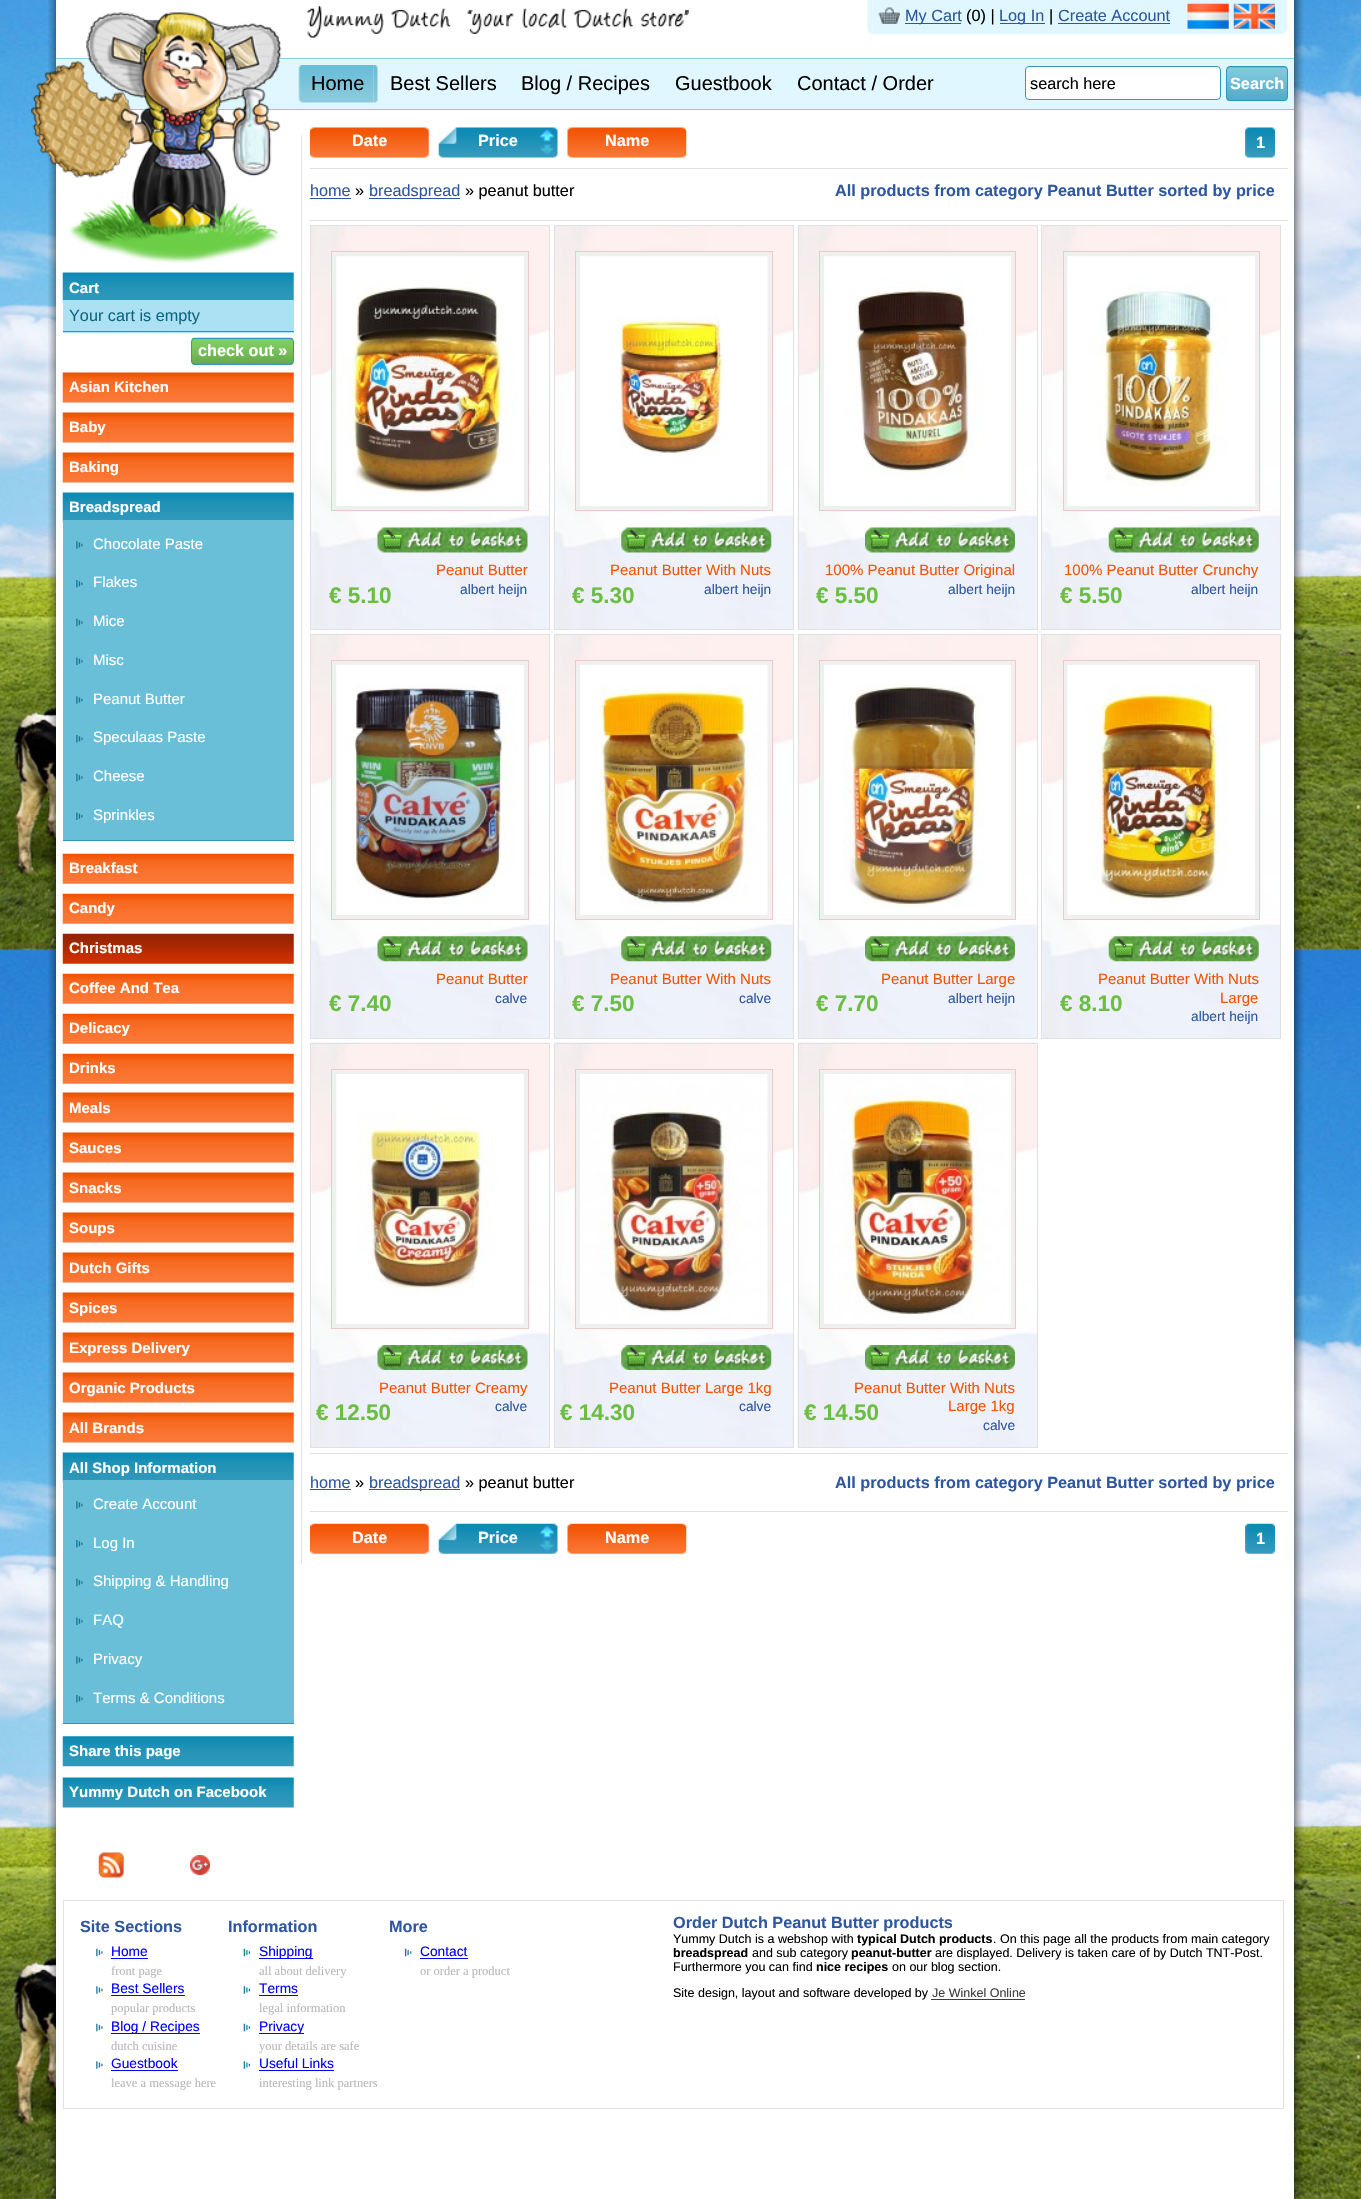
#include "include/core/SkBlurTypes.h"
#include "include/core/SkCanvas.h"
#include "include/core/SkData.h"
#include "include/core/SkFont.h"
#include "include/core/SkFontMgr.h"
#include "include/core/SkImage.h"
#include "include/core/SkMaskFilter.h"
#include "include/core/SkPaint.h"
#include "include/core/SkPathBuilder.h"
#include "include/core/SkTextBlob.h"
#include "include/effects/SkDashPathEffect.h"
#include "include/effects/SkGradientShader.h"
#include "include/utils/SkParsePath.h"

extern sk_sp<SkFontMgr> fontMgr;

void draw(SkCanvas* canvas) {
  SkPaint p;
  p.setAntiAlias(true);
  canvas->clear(SK_ColorWHITE);
  canvas->drawImageRect(SkImages::DeferredFromEncodedData(SkData::MakeFromFileName("images/1.png")), SkRect::MakeLTRB(0, 0, 1361, 2199), SkSamplingOptions());
  canvas->drawImageRect(SkImages::DeferredFromEncodedData(SkData::MakeFromFileName("images/2.png")), SkRect::MakeLTRB(48, 0, 1304, 2199), SkSamplingOptions());
  p.setColor(SK_ColorWHITE);
  canvas->drawRect(SkRect::MakeLTRB(56, 0, 1294, 2199), p);
  p.setColor(SkColorSetRGB(224, 247, 255));
  canvas->drawRect(SkRect::MakeLTRB(56, 59, 1294, 109), p);
  p.setColor(SkColorSetRGB(141, 202, 221));
  canvas->drawRect(SkRect::MakeLTRB(56, 58, 1294, 59), p);
  canvas->drawRect(SkRect::MakeLTRB(122, 109, 1294, 110), p);
  canvas->drawImageRect(SkImages::DeferredFromEncodedData(SkData::MakeFromFileName("images/3.png")), SkRect::MakeLTRB(31, 12, 282, 263), SkSamplingOptions());
  canvas->drawImageRect(SkImages::DeferredFromEncodedData(SkData::MakeFromFileName("images/4.png")), SkRect::MakeLTRB(307, 6, 689, 38), SkSamplingOptions());
  canvas->drawImageRect(SkImages::DeferredFromEncodedData(SkData::MakeFromFileName("images/6.png")), SkRect::MakeLTRB(872, 0, 1282, 35), SkSamplingOptions());
  canvas->drawImageRect(SkImages::DeferredFromEncodedData(SkData::MakeFromFileName("images/5.png")), SkRect::MakeLTRB(867, 0, 873, 34), SkSamplingOptions());
  canvas->drawImageRect(SkImages::DeferredFromEncodedData(SkData::MakeFromFileName("images/7.png")), SkRect::MakeLTRB(878, 7, 900, 24), SkSamplingOptions());
  p.setColor(SkColorSetRGB(46, 87, 159));
  canvas->drawRect(SkRect::MakeLTRB(905, 23, 961, 24), p);
  canvas->drawRect(SkRect::MakeLTRB(1000, 23, 1045, 24), p);
  canvas->drawRect(SkRect::MakeLTRB(1058, 23, 1170, 24), p);
  canvas->drawImageRect(SkImages::DeferredFromEncodedData(SkData::MakeFromFileName("images/8.png")), SkRect::MakeLTRB(1187, 3, 1229, 29), SkSamplingOptions());
  canvas->drawImageRect(SkImages::DeferredFromEncodedData(SkData::MakeFromFileName("images/9.png")), SkRect::MakeLTRB(1233, 3, 1275, 29), SkSamplingOptions());
  canvas->drawImageRect(SkImages::DeferredFromEncodedData(SkData::MakeFromFileName("images/10.png")), SkRect::MakeLTRB(1281, 0, 1288, 34), SkSamplingOptions());
  canvas->drawImageRect(SkImages::DeferredFromEncodedData(SkData::MakeFromFileName("images/11.png")), SkRect::MakeLTRB(373, 65, 378, 103), SkSamplingOptions());
  canvas->drawImageRect(SkImages::DeferredFromEncodedData(SkData::MakeFromFileName("images/12.png")), SkRect::MakeLTRB(298, 65, 374, 103), SkSamplingOptions());
  p.setColor(SK_ColorWHITE);
  canvas->drawRoundRect(SkRect::MakeLTRB(1025.5f, 66.5f, 1220.5f, 99.5f), 3.5f, 3.5f, p);
  p.setStyle(SkPaint::kStroke_Style);
  p.setStrokeWidth(1);
  p.setColor(SkColorSetRGB(50, 153, 187));
  canvas->drawRoundRect(SkRect::MakeLTRB(1025.5f, 66.5f, 1220.5f, 99.5f), 3.5f, 3.5f, p);
  canvas->drawImageRect(SkImages::DeferredFromEncodedData(SkData::MakeFromFileName("images/13.png")), SkRect::MakeLTRB(1226, 66, 1288, 102), SkSamplingOptions());
  p.setColor(SkColorSetRGB(46, 151, 186));
  canvas->drawRoundRect(SkRect::MakeLTRB(1226.5f, 66.5f, 1287.5f, 100.5f), 3.5f, 3.5f, p);
  canvas->drawImageRect(SkImages::DeferredFromEncodedData(SkData::MakeFromFileName("images/14.png")), SkRect::MakeLTRB(62, 272, 294, 303), SkSamplingOptions());
  p.setStyle(SkPaint::kFill_Style);
  p.setColor(SkColorSetRGB(172, 225, 243));
  canvas->drawRect(SkRect::MakeLTRB(63, 300, 294, 333), p);
  p.setColor(SkColorSetRGB(46, 151, 186));
  canvas->drawRect(SkRect::MakeLTRB(63, 331, 294, 332), p);
  canvas->drawImageRect(SkImages::DeferredFromEncodedData(SkData::MakeFromFileName("images/15.png")), SkRect::MakeLTRB(191, 337, 294, 365), SkSamplingOptions());
  p.setStyle(SkPaint::kStroke_Style);
  canvas->drawRoundRect(SkRect::MakeLTRB(191.5f, 338.5f, 293.5f, 364.5f), 3.5f, 3.5f, p);
  canvas->drawImageRect(SkImages::DeferredFromEncodedData(SkData::MakeFromFileName("images/16.png")), SkRect::MakeLTRB(62, 372, 294, 403), SkSamplingOptions());
  canvas->drawImageRect(SkImages::DeferredFromEncodedData(SkData::MakeFromFileName("images/16.png")), SkRect::MakeLTRB(62, 412, 294, 443), SkSamplingOptions());
  canvas->drawImageRect(SkImages::DeferredFromEncodedData(SkData::MakeFromFileName("images/16.png")), SkRect::MakeLTRB(62, 452, 294, 483), SkSamplingOptions());
  canvas->drawImageRect(SkImages::DeferredFromEncodedData(SkData::MakeFromFileName("images/14.png")), SkRect::MakeLTRB(62, 492, 294, 523), SkSamplingOptions());
  p.setStyle(SkPaint::kFill_Style);
  p.setColor(SkColorSetRGB(105, 190, 216));
  canvas->drawRect(SkRect::MakeLTRB(63, 520, 294, 840), p);
  p.setColor(SkColorSetRGB(46, 151, 186));
  canvas->drawRect(SkRect::MakeLTRB(63, 840, 294, 841), p);
  canvas->drawImageRect(SkImages::DeferredFromEncodedData(SkData::MakeFromFileName("images/17.png")), SkRect::MakeLTRB(76, 541, 83, 549), SkSamplingOptions());
  canvas->drawImageRect(SkImages::DeferredFromEncodedData(SkData::MakeFromFileName("images/18.png")), SkRect::MakeLTRB(76, 580, 83, 588), SkSamplingOptions());
  canvas->drawImageRect(SkImages::DeferredFromEncodedData(SkData::MakeFromFileName("images/19.png")), SkRect::MakeLTRB(76, 618, 83, 627), SkSamplingOptions());
  canvas->drawImageRect(SkImages::DeferredFromEncodedData(SkData::MakeFromFileName("images/20.png")), SkRect::MakeLTRB(76, 657, 83, 665), SkSamplingOptions());
  canvas->drawImageRect(SkImages::DeferredFromEncodedData(SkData::MakeFromFileName("images/17.png")), SkRect::MakeLTRB(76, 696, 83, 704), SkSamplingOptions());
  canvas->drawImageRect(SkImages::DeferredFromEncodedData(SkData::MakeFromFileName("images/18.png")), SkRect::MakeLTRB(76, 735, 83, 743), SkSamplingOptions());
  canvas->drawImageRect(SkImages::DeferredFromEncodedData(SkData::MakeFromFileName("images/19.png")), SkRect::MakeLTRB(76, 773, 83, 782), SkSamplingOptions());
  canvas->drawImageRect(SkImages::DeferredFromEncodedData(SkData::MakeFromFileName("images/20.png")), SkRect::MakeLTRB(76, 812, 83, 820), SkSamplingOptions());
  canvas->drawImageRect(SkImages::DeferredFromEncodedData(SkData::MakeFromFileName("images/21.png")), SkRect::MakeLTRB(62, 853, 294, 884), SkSamplingOptions());
  canvas->drawImageRect(SkImages::DeferredFromEncodedData(SkData::MakeFromFileName("images/21.png")), SkRect::MakeLTRB(62, 893, 294, 924), SkSamplingOptions());
  canvas->drawImageRect(SkImages::DeferredFromEncodedData(SkData::MakeFromFileName("images/22.png")), SkRect::MakeLTRB(62, 933, 294, 964), SkSamplingOptions());
  canvas->drawImageRect(SkImages::DeferredFromEncodedData(SkData::MakeFromFileName("images/21.png")), SkRect::MakeLTRB(62, 973, 294, 1004), SkSamplingOptions());
  canvas->drawImageRect(SkImages::DeferredFromEncodedData(SkData::MakeFromFileName("images/21.png")), SkRect::MakeLTRB(62, 1013, 294, 1044), SkSamplingOptions());
  canvas->drawImageRect(SkImages::DeferredFromEncodedData(SkData::MakeFromFileName("images/21.png")), SkRect::MakeLTRB(62, 1053, 294, 1084), SkSamplingOptions());
  canvas->drawImageRect(SkImages::DeferredFromEncodedData(SkData::MakeFromFileName("images/16.png")), SkRect::MakeLTRB(62, 1092, 294, 1123), SkSamplingOptions());
  canvas->drawImageRect(SkImages::DeferredFromEncodedData(SkData::MakeFromFileName("images/16.png")), SkRect::MakeLTRB(62, 1132, 294, 1163), SkSamplingOptions());
  canvas->drawImageRect(SkImages::DeferredFromEncodedData(SkData::MakeFromFileName("images/23.png")), SkRect::MakeLTRB(62, 1172, 294, 1203), SkSamplingOptions());
  canvas->drawImageRect(SkImages::DeferredFromEncodedData(SkData::MakeFromFileName("images/16.png")), SkRect::MakeLTRB(62, 1212, 294, 1243), SkSamplingOptions());
  canvas->drawImageRect(SkImages::DeferredFromEncodedData(SkData::MakeFromFileName("images/16.png")), SkRect::MakeLTRB(62, 1252, 294, 1283), SkSamplingOptions());
  canvas->drawImageRect(SkImages::DeferredFromEncodedData(SkData::MakeFromFileName("images/16.png")), SkRect::MakeLTRB(62, 1292, 294, 1323), SkSamplingOptions());
  canvas->drawImageRect(SkImages::DeferredFromEncodedData(SkData::MakeFromFileName("images/16.png")), SkRect::MakeLTRB(62, 1332, 294, 1363), SkSamplingOptions());
  canvas->drawImageRect(SkImages::DeferredFromEncodedData(SkData::MakeFromFileName("images/16.png")), SkRect::MakeLTRB(62, 1372, 294, 1403), SkSamplingOptions());
  canvas->drawImageRect(SkImages::DeferredFromEncodedData(SkData::MakeFromFileName("images/16.png")), SkRect::MakeLTRB(62, 1412, 294, 1443), SkSamplingOptions());
  canvas->drawImageRect(SkImages::DeferredFromEncodedData(SkData::MakeFromFileName("images/14.png")), SkRect::MakeLTRB(62, 1452, 294, 1483), SkSamplingOptions());
  p.setColor(SkColorSetRGB(105, 190, 216));
  canvas->drawRect(SkRect::MakeLTRB(63, 1480, 294, 1723), p);
  p.setColor(SkColorSetRGB(46, 151, 186));
  canvas->drawRect(SkRect::MakeLTRB(63, 1723, 294, 1724), p);
  canvas->drawImageRect(SkImages::DeferredFromEncodedData(SkData::MakeFromFileName("images/17.png")), SkRect::MakeLTRB(76, 1501, 83, 1509), SkSamplingOptions());
  canvas->drawImageRect(SkImages::DeferredFromEncodedData(SkData::MakeFromFileName("images/18.png")), SkRect::MakeLTRB(76, 1540, 83, 1548), SkSamplingOptions());
  canvas->drawImageRect(SkImages::DeferredFromEncodedData(SkData::MakeFromFileName("images/19.png")), SkRect::MakeLTRB(76, 1578, 83, 1587), SkSamplingOptions());
  canvas->drawImageRect(SkImages::DeferredFromEncodedData(SkData::MakeFromFileName("images/20.png")), SkRect::MakeLTRB(76, 1617, 83, 1625), SkSamplingOptions());
  canvas->drawImageRect(SkImages::DeferredFromEncodedData(SkData::MakeFromFileName("images/17.png")), SkRect::MakeLTRB(76, 1656, 83, 1664), SkSamplingOptions());
  canvas->drawImageRect(SkImages::DeferredFromEncodedData(SkData::MakeFromFileName("images/18.png")), SkRect::MakeLTRB(76, 1695, 83, 1703), SkSamplingOptions());
  canvas->drawImageRect(SkImages::DeferredFromEncodedData(SkData::MakeFromFileName("images/24.png")), SkRect::MakeLTRB(62, 1736, 294, 1767), SkSamplingOptions());
  canvas->drawImageRect(SkImages::DeferredFromEncodedData(SkData::MakeFromFileName("images/14.png")), SkRect::MakeLTRB(62, 1777, 294, 1808), SkSamplingOptions());
  canvas->drawImageRect(SkImages::DeferredFromEncodedData(SkData::MakeFromFileName("images/25.png")), SkRect::MakeLTRB(98, 1852, 124, 1878), SkSamplingOptions());
  canvas->drawImageRect(SkImages::DeferredFromEncodedData(SkData::MakeFromFileName("images/26.png")), SkRect::MakeLTRB(190, 1855, 210, 1875), SkSamplingOptions());
  p.setColor(SkColorSetRGB(227, 227, 227));
  canvas->drawRect(SkRect::MakeLTRB(301, 135, 302, 1564), p);
  p.setColor(SkColorSetRGB(225, 225, 225));
  canvas->drawRect(SkRect::MakeLTRB(310, 168, 1288, 169), p);
  canvas->drawImageRect(SkImages::DeferredFromEncodedData(SkData::MakeFromFileName("images/27.png")), SkRect::MakeLTRB(310, 127, 429, 158), SkSamplingOptions());
  canvas->drawImageRect(SkImages::DeferredFromEncodedData(SkData::MakeFromFileName("images/28.png")), SkRect::MakeLTRB(438, 127, 558, 158), SkSamplingOptions());
  canvas->drawImageRect(SkImages::DeferredFromEncodedData(SkData::MakeFromFileName("images/29.png")), SkRect::MakeLTRB(567, 127, 687, 158), SkSamplingOptions());
  canvas->drawImageRect(SkImages::DeferredFromEncodedData(SkData::MakeFromFileName("images/30.png")), SkRect::MakeLTRB(1245, 127, 1275, 158), SkSamplingOptions());
  p.setColor(SkColorSetRGB(46, 87, 159));
  canvas->drawRect(SkRect::MakeLTRB(310, 198, 351, 199), p);
  canvas->drawRect(SkRect::MakeLTRB(369, 198, 460, 199), p);
  p.setColor(SkColorSetRGB(225, 225, 225));
  canvas->drawRect(SkRect::MakeLTRB(310, 220, 1288, 221), p);
  canvas->drawImageRect(SkImages::DeferredFromEncodedData(SkData::MakeFromFileName("images/31.png")), SkRect::MakeLTRB(311, 226, 549, 629), SkSamplingOptions());
  p.setStyle(SkPaint::kStroke_Style);
  canvas->drawRect(SkRect::MakeLTRB(310.5f, 225.5f, 549.5f, 629.5f), p);
  p.setStyle(SkPaint::kFill_Style);
  p.setColor(SkColorSetRGB(240, 240, 240));
  canvas->drawRect(SkRect::MakeLTRB(331.5f, 251.5f, 528.5f, 510.5f), p);
  p.setStyle(SkPaint::kStroke_Style);
  p.setColor(SkColorSetRGB(237, 201, 202));
  canvas->drawRect(SkRect::MakeLTRB(331.5f, 251.5f, 528.5f, 510.5f), p);
  canvas->drawImageRect(SkImages::DeferredFromEncodedData(SkData::MakeFromFileName("images/32.png")), SkRect::MakeLTRB(336, 256, 524, 506), SkSamplingOptions());
  canvas->drawImageRect(SkImages::DeferredFromEncodedData(SkData::MakeFromFileName("images/33.png")), SkRect::MakeLTRB(377, 527, 528, 553), SkSamplingOptions());
  canvas->drawImageRect(SkImages::DeferredFromEncodedData(SkData::MakeFromFileName("images/34.png")), SkRect::MakeLTRB(553, 225, 793, 630), SkSamplingOptions());
  p.setColor(SkColorSetRGB(225, 225, 225));
  canvas->drawRect(SkRect::MakeLTRB(554.5f, 225.5f, 793.5f, 629.5f), p);
  p.setStyle(SkPaint::kFill_Style);
  p.setColor(SkColorSetRGB(240, 240, 240));
  canvas->drawRect(SkRect::MakeLTRB(575.5f, 251.5f, 772.5f, 510.5f), p);
  p.setStyle(SkPaint::kStroke_Style);
  p.setColor(SkColorSetRGB(237, 201, 202));
  canvas->drawRect(SkRect::MakeLTRB(575.5f, 251.5f, 772.5f, 510.5f), p);
  canvas->drawImageRect(SkImages::DeferredFromEncodedData(SkData::MakeFromFileName("images/35.png")), SkRect::MakeLTRB(580, 256, 768, 506), SkSamplingOptions());
  canvas->drawImageRect(SkImages::DeferredFromEncodedData(SkData::MakeFromFileName("images/36.png")), SkRect::MakeLTRB(621, 527, 772, 553), SkSamplingOptions());
  canvas->drawImageRect(SkImages::DeferredFromEncodedData(SkData::MakeFromFileName("images/37.png")), SkRect::MakeLTRB(797, 225, 1037, 630), SkSamplingOptions());
  p.setColor(SkColorSetRGB(225, 225, 225));
  canvas->drawRect(SkRect::MakeLTRB(798.5f, 225.5f, 1037.5f, 629.5f), p);
  p.setStyle(SkPaint::kFill_Style);
  p.setColor(SkColorSetRGB(240, 240, 240));
  canvas->drawRect(SkRect::MakeLTRB(819.5f, 251.5f, 1015.5f, 510.5f), p);
  p.setStyle(SkPaint::kStroke_Style);
  p.setColor(SkColorSetRGB(237, 201, 202));
  canvas->drawRect(SkRect::MakeLTRB(819.5f, 251.5f, 1015.5f, 510.5f), p);
  canvas->drawImageRect(SkImages::DeferredFromEncodedData(SkData::MakeFromFileName("images/38.png")), SkRect::MakeLTRB(824, 256, 1011, 506), SkSamplingOptions());
  canvas->drawImageRect(SkImages::DeferredFromEncodedData(SkData::MakeFromFileName("images/39.png")), SkRect::MakeLTRB(865, 527, 1015, 553), SkSamplingOptions());
  canvas->drawImageRect(SkImages::DeferredFromEncodedData(SkData::MakeFromFileName("images/40.png")), SkRect::MakeLTRB(1042, 225, 1282, 630), SkSamplingOptions());
  p.setColor(SkColorSetRGB(225, 225, 225));
  canvas->drawRect(SkRect::MakeLTRB(1041.5f, 225.5f, 1280.5f, 629.5f), p);
  p.setStyle(SkPaint::kFill_Style);
  p.setColor(SkColorSetRGB(240, 240, 240));
  canvas->drawRect(SkRect::MakeLTRB(1063.5f, 251.5f, 1259.5f, 510.5f), p);
  p.setStyle(SkPaint::kStroke_Style);
  p.setColor(SkColorSetRGB(237, 201, 202));
  canvas->drawRect(SkRect::MakeLTRB(1063.5f, 251.5f, 1259.5f, 510.5f), p);
  canvas->drawImageRect(SkImages::DeferredFromEncodedData(SkData::MakeFromFileName("images/41.png")), SkRect::MakeLTRB(1067, 256, 1255, 506), SkSamplingOptions());
  canvas->drawImageRect(SkImages::DeferredFromEncodedData(SkData::MakeFromFileName("images/42.png")), SkRect::MakeLTRB(1108, 527, 1259, 553), SkSamplingOptions());
  canvas->drawImageRect(SkImages::DeferredFromEncodedData(SkData::MakeFromFileName("images/43.png")), SkRect::MakeLTRB(310, 633, 550, 1038), SkSamplingOptions());
  p.setColor(SkColorSetRGB(225, 225, 225));
  canvas->drawRect(SkRect::MakeLTRB(310.5f, 634.5f, 549.5f, 1038.5f), p);
  p.setStyle(SkPaint::kFill_Style);
  p.setColor(SkColorSetRGB(240, 240, 240));
  canvas->drawRect(SkRect::MakeLTRB(331.5f, 660.5f, 528.5f, 919.5f), p);
  p.setStyle(SkPaint::kStroke_Style);
  p.setColor(SkColorSetRGB(237, 201, 202));
  canvas->drawRect(SkRect::MakeLTRB(331.5f, 660.5f, 528.5f, 919.5f), p);
  canvas->drawImageRect(SkImages::DeferredFromEncodedData(SkData::MakeFromFileName("images/44.png")), SkRect::MakeLTRB(336, 665, 524, 915), SkSamplingOptions());
  canvas->drawImageRect(SkImages::DeferredFromEncodedData(SkData::MakeFromFileName("images/45.png")), SkRect::MakeLTRB(377, 936, 528, 962), SkSamplingOptions());
  canvas->drawImageRect(SkImages::DeferredFromEncodedData(SkData::MakeFromFileName("images/46.png")), SkRect::MakeLTRB(553, 633, 794, 1039), SkSamplingOptions());
  p.setColor(SkColorSetRGB(225, 225, 225));
  canvas->drawRect(SkRect::MakeLTRB(554.5f, 634.5f, 793.5f, 1038.5f), p);
  p.setStyle(SkPaint::kFill_Style);
  p.setColor(SkColorSetRGB(240, 240, 240));
  canvas->drawRect(SkRect::MakeLTRB(575.5f, 660.5f, 772.5f, 919.5f), p);
  p.setStyle(SkPaint::kStroke_Style);
  p.setColor(SkColorSetRGB(237, 201, 202));
  canvas->drawRect(SkRect::MakeLTRB(575.5f, 660.5f, 772.5f, 919.5f), p);
  canvas->drawImageRect(SkImages::DeferredFromEncodedData(SkData::MakeFromFileName("images/47.png")), SkRect::MakeLTRB(580, 665, 768, 915), SkSamplingOptions());
  canvas->drawImageRect(SkImages::DeferredFromEncodedData(SkData::MakeFromFileName("images/48.png")), SkRect::MakeLTRB(621, 936, 772, 962), SkSamplingOptions());
  canvas->drawImageRect(SkImages::DeferredFromEncodedData(SkData::MakeFromFileName("images/49.png")), SkRect::MakeLTRB(797, 633, 1038, 1039), SkSamplingOptions());
  p.setColor(SkColorSetRGB(225, 225, 225));
  canvas->drawRect(SkRect::MakeLTRB(798.5f, 634.5f, 1037.5f, 1038.5f), p);
  p.setStyle(SkPaint::kFill_Style);
  p.setColor(SkColorSetRGB(240, 240, 240));
  canvas->drawRect(SkRect::MakeLTRB(819.5f, 660.5f, 1015.5f, 919.5f), p);
  p.setStyle(SkPaint::kStroke_Style);
  p.setColor(SkColorSetRGB(237, 201, 202));
  canvas->drawRect(SkRect::MakeLTRB(819.5f, 660.5f, 1015.5f, 919.5f), p);
  canvas->drawImageRect(SkImages::DeferredFromEncodedData(SkData::MakeFromFileName("images/50.png")), SkRect::MakeLTRB(824, 665, 1011, 915), SkSamplingOptions());
  canvas->drawImageRect(SkImages::DeferredFromEncodedData(SkData::MakeFromFileName("images/51.png")), SkRect::MakeLTRB(865, 936, 1015, 962), SkSamplingOptions());
  canvas->drawImageRect(SkImages::DeferredFromEncodedData(SkData::MakeFromFileName("images/52.png")), SkRect::MakeLTRB(1041, 633, 1282, 1039), SkSamplingOptions());
  p.setColor(SkColorSetRGB(225, 225, 225));
  canvas->drawRect(SkRect::MakeLTRB(1041.5f, 634.5f, 1280.5f, 1038.5f), p);
  p.setStyle(SkPaint::kFill_Style);
  p.setColor(SkColorSetRGB(240, 240, 240));
  canvas->drawRect(SkRect::MakeLTRB(1063.5f, 660.5f, 1259.5f, 919.5f), p);
  p.setStyle(SkPaint::kStroke_Style);
  p.setColor(SkColorSetRGB(237, 201, 202));
  canvas->drawRect(SkRect::MakeLTRB(1063.5f, 660.5f, 1259.5f, 919.5f), p);
  canvas->drawImageRect(SkImages::DeferredFromEncodedData(SkData::MakeFromFileName("images/53.png")), SkRect::MakeLTRB(1067, 665, 1255, 915), SkSamplingOptions());
  canvas->drawImageRect(SkImages::DeferredFromEncodedData(SkData::MakeFromFileName("images/54.png")), SkRect::MakeLTRB(1108, 936, 1259, 962), SkSamplingOptions());
  canvas->drawImageRect(SkImages::DeferredFromEncodedData(SkData::MakeFromFileName("images/55.png")), SkRect::MakeLTRB(310, 1042, 550, 1447), SkSamplingOptions());
  p.setColor(SkColorSetRGB(225, 225, 225));
  canvas->drawRect(SkRect::MakeLTRB(310.5f, 1043.5f, 549.5f, 1447.5f), p);
  p.setStyle(SkPaint::kFill_Style);
  p.setColor(SkColorSetRGB(240, 240, 240));
  canvas->drawRect(SkRect::MakeLTRB(331.5f, 1069.5f, 528.5f, 1328.5f), p);
  p.setStyle(SkPaint::kStroke_Style);
  p.setColor(SkColorSetRGB(237, 201, 202));
  canvas->drawRect(SkRect::MakeLTRB(331.5f, 1069.5f, 528.5f, 1328.5f), p);
  canvas->drawImageRect(SkImages::DeferredFromEncodedData(SkData::MakeFromFileName("images/56.png")), SkRect::MakeLTRB(336, 1074, 524, 1324), SkSamplingOptions());
  canvas->drawImageRect(SkImages::DeferredFromEncodedData(SkData::MakeFromFileName("images/57.png")), SkRect::MakeLTRB(377, 1345, 528, 1370), SkSamplingOptions());
  canvas->drawImageRect(SkImages::DeferredFromEncodedData(SkData::MakeFromFileName("images/58.png")), SkRect::MakeLTRB(553, 1042, 794, 1448), SkSamplingOptions());
  p.setColor(SkColorSetRGB(225, 225, 225));
  canvas->drawRect(SkRect::MakeLTRB(554.5f, 1043.5f, 793.5f, 1447.5f), p);
  p.setStyle(SkPaint::kFill_Style);
  p.setColor(SkColorSetRGB(240, 240, 240));
  canvas->drawRect(SkRect::MakeLTRB(575.5f, 1069.5f, 772.5f, 1328.5f), p);
  p.setStyle(SkPaint::kStroke_Style);
  p.setColor(SkColorSetRGB(237, 201, 202));
  canvas->drawRect(SkRect::MakeLTRB(575.5f, 1069.5f, 772.5f, 1328.5f), p);
  canvas->drawImageRect(SkImages::DeferredFromEncodedData(SkData::MakeFromFileName("images/59.png")), SkRect::MakeLTRB(580, 1074, 768, 1324), SkSamplingOptions());
  canvas->drawImageRect(SkImages::DeferredFromEncodedData(SkData::MakeFromFileName("images/60.png")), SkRect::MakeLTRB(621, 1345, 772, 1370), SkSamplingOptions());
  canvas->drawImageRect(SkImages::DeferredFromEncodedData(SkData::MakeFromFileName("images/61.png")), SkRect::MakeLTRB(797, 1042, 1038, 1448), SkSamplingOptions());
  p.setColor(SkColorSetRGB(225, 225, 225));
  canvas->drawRect(SkRect::MakeLTRB(798.5f, 1043.5f, 1037.5f, 1447.5f), p);
  p.setStyle(SkPaint::kFill_Style);
  p.setColor(SkColorSetRGB(240, 240, 240));
  canvas->drawRect(SkRect::MakeLTRB(819.5f, 1069.5f, 1015.5f, 1328.5f), p);
  p.setStyle(SkPaint::kStroke_Style);
  p.setColor(SkColorSetRGB(237, 201, 202));
  canvas->drawRect(SkRect::MakeLTRB(819.5f, 1069.5f, 1015.5f, 1328.5f), p);
  canvas->drawImageRect(SkImages::DeferredFromEncodedData(SkData::MakeFromFileName("images/62.png")), SkRect::MakeLTRB(824, 1074, 1011, 1324), SkSamplingOptions());
  canvas->drawImageRect(SkImages::DeferredFromEncodedData(SkData::MakeFromFileName("images/63.png")), SkRect::MakeLTRB(865, 1345, 1015, 1370), SkSamplingOptions());
  p.setStyle(SkPaint::kFill_Style);
  p.setColor(SkColorSetRGB(225, 225, 225));
  canvas->drawRect(SkRect::MakeLTRB(310, 1453, 1288, 1454), p);
  p.setColor(SkColorSetRGB(46, 87, 159));
  canvas->drawRect(SkRect::MakeLTRB(310, 1489, 351, 1490), p);
  canvas->drawRect(SkRect::MakeLTRB(369, 1489, 460, 1490), p);
  p.setColor(SkColorSetRGB(225, 225, 225));
  canvas->drawRect(SkRect::MakeLTRB(310, 1511, 1288, 1512), p);
  canvas->drawImageRect(SkImages::DeferredFromEncodedData(SkData::MakeFromFileName("images/64.png")), SkRect::MakeLTRB(310, 1523, 429, 1554), SkSamplingOptions());
  canvas->drawImageRect(SkImages::DeferredFromEncodedData(SkData::MakeFromFileName("images/65.png")), SkRect::MakeLTRB(438, 1523, 558, 1554), SkSamplingOptions());
  canvas->drawImageRect(SkImages::DeferredFromEncodedData(SkData::MakeFromFileName("images/66.png")), SkRect::MakeLTRB(567, 1523, 687, 1554), SkSamplingOptions());
  canvas->drawImageRect(SkImages::DeferredFromEncodedData(SkData::MakeFromFileName("images/67.png")), SkRect::MakeLTRB(1245, 1523, 1275, 1554), SkSamplingOptions());
  p.setStyle(SkPaint::kStroke_Style);
  canvas->drawRect(SkRect::MakeLTRB(63.5f, 1900.5f, 1283.5f, 2108.5f), p);
  canvas->drawImageRect(SkImages::DeferredFromEncodedData(SkData::MakeFromFileName("images/68.png")), SkRect::MakeLTRB(96, 1948, 103, 1957), SkSamplingOptions());
  p.setStyle(SkPaint::kFill_Style);
  p.setColor(SkColorSetRGB(0, 0, 255));
  canvas->drawRect(SkRect::MakeLTRB(111, 1958, 148, 1959), p);
  canvas->drawImageRect(SkImages::DeferredFromEncodedData(SkData::MakeFromFileName("images/69.png")), SkRect::MakeLTRB(96, 1986, 103, 1994), SkSamplingOptions());
  canvas->drawRect(SkRect::MakeLTRB(111, 1995, 185, 1996), p);
  canvas->drawImageRect(SkImages::DeferredFromEncodedData(SkData::MakeFromFileName("images/68.png")), SkRect::MakeLTRB(96, 2023, 103, 2032), SkSamplingOptions());
  canvas->drawRect(SkRect::MakeLTRB(111, 2033, 200, 2034), p);
  canvas->drawImageRect(SkImages::DeferredFromEncodedData(SkData::MakeFromFileName("images/69.png")), SkRect::MakeLTRB(96, 2061, 103, 2069), SkSamplingOptions());
  canvas->drawRect(SkRect::MakeLTRB(111, 2070, 178, 2071), p);
  canvas->drawImageRect(SkImages::DeferredFromEncodedData(SkData::MakeFromFileName("images/70.png")), SkRect::MakeLTRB(243, 1948, 250, 1957), SkSamplingOptions());
  canvas->drawRect(SkRect::MakeLTRB(259, 1958, 313, 1959), p);
  canvas->drawImageRect(SkImages::DeferredFromEncodedData(SkData::MakeFromFileName("images/71.png")), SkRect::MakeLTRB(243, 1986, 250, 1994), SkSamplingOptions());
  canvas->drawRect(SkRect::MakeLTRB(259, 1995, 298, 1996), p);
  canvas->drawImageRect(SkImages::DeferredFromEncodedData(SkData::MakeFromFileName("images/70.png")), SkRect::MakeLTRB(243, 2023, 250, 2032), SkSamplingOptions());
  canvas->drawRect(SkRect::MakeLTRB(259, 2033, 304, 2034), p);
  canvas->drawImageRect(SkImages::DeferredFromEncodedData(SkData::MakeFromFileName("images/71.png")), SkRect::MakeLTRB(243, 2061, 250, 2069), SkSamplingOptions());
  canvas->drawRect(SkRect::MakeLTRB(259, 2070, 334, 2071), p);
  canvas->drawImageRect(SkImages::DeferredFromEncodedData(SkData::MakeFromFileName("images/72.png")), SkRect::MakeLTRB(405, 1948, 412, 1957), SkSamplingOptions());
  canvas->drawRect(SkRect::MakeLTRB(420, 1958, 468, 1959), p);
  p.setColor(SkColorSetRGB(63, 63, 63));
  canvas->drawRect(SkRect::MakeLTRB(931, 1999, 1025, 2000), p);
  SkFont font1(fontMgr->matchFamilyStyle("Liberation Sans", SkFontStyle::Normal()), 16.25f);
  font1.setSubpixel(true);
  p.setColor(SkColorSetRGB(46, 87, 159));
  canvas->drawString("My Cart", 905, 21, font1, p);
  p.setColor(SK_ColorBLACK);
  canvas->drawString("(0) |", 966, 21, font1, p);
  p.setColor(SkColorSetRGB(46, 87, 159));
  canvas->drawString("Log In", 999, 21, font1, p);
  p.setColor(SK_ColorBLACK);
  canvas->drawString("|", 1049, 21, font1, p);
  p.setColor(SkColorSetRGB(46, 87, 159));
  canvas->drawString("Create Account", 1058, 21, font1, p);
  SkFont font2(fontMgr->matchFamilyStyle("Liberation Sans", SkFontStyle::Normal()), 20);
  font2.setSubpixel(true);
  p.setColor(SK_ColorBLACK);
  canvas->drawString("Best Sellers", 390, 90, font2, p);
  canvas->drawString("Blog / Recipes", 521, 90, font2, p);
  canvas->drawString("Guestbook", 675, 90, font2, p);
  canvas->drawString("Contact / Order", 797, 90, font2, p);
  canvas->drawString("Home", 311, 90, font2, p);
  canvas->drawString("search here", 1030, 89, font1, p);
  SkFont font3(fontMgr->matchFamilyStyle("Liberation Sans", SkFontStyle::Bold()), 16.25f);
  font3.setSubpixel(true);
  p.setColor(SK_ColorWHITE);
  canvas->drawString("Search", 1230, 89, font3, p);
  SkFont font4(fontMgr->matchFamilyStyle("Liberation Sans", SkFontStyle::Bold()), 15);
  font4.setSubpixel(true);
  canvas->drawString("Cart", 69, 293, font4, p);
  p.setColor(SkColorSetRGB(15, 101, 127));
  canvas->drawString("Your cart is empty", 69, 321, font1, p);
  p.setColor(SK_ColorWHITE);
  canvas->drawString("check out »", 198, 356, font3, p);
  canvas->drawString("Asian Kitchen", 69, 392, font4, p);
  canvas->drawString("Baby", 69, 432, font4, p);
  canvas->drawString("Baking", 69, 472, font4, p);
  canvas->drawString("Breadspread", 69, 512, font4, p);
  SkFont font5(fontMgr->matchFamilyStyle("Liberation Sans", SkFontStyle::Normal()), 15);
  font5.setSubpixel(true);
  canvas->drawString("Chocolate Paste", 93, 549, font5, p);
  canvas->drawString("Flakes", 93, 587, font5, p);
  canvas->drawString("Mice", 93, 626, font5, p);
  canvas->drawString("Misc", 93, 665, font5, p);
  canvas->drawString("Peanut Butter", 93, 704, font5, p);
  canvas->drawString("Speculaas Paste", 93, 742, font5, p);
  canvas->drawString("Cheese", 93, 781, font5, p);
  canvas->drawString("Sprinkles", 93, 820, font5, p);
  canvas->drawString("Breakfast", 69, 873, font4, p);
  canvas->drawString("Candy", 69, 913, font4, p);
  canvas->drawString("Christmas", 69, 953, font4, p);
  canvas->drawString("Coffee And Tea", 69, 993, font4, p);
  canvas->drawString("Delicacy", 69, 1033, font4, p);
  canvas->drawString("Drinks", 69, 1073, font4, p);
  canvas->drawString("Meals", 69, 1113, font4, p);
  canvas->drawString("Sauces", 69, 1153, font4, p);
  canvas->drawString("Snacks", 69, 1193, font4, p);
  canvas->drawString("Soups", 69, 1233, font4, p);
  canvas->drawString("Dutch Gifts", 69, 1273, font4, p);
  canvas->drawString("Spices", 69, 1313, font4, p);
  canvas->drawString("Express Delivery", 69, 1353, font4, p);
  canvas->drawString("Organic Products", 69, 1393, font4, p);
  canvas->drawString("All Brands", 69, 1433, font4, p);
  canvas->drawString("All Shop Information", 69, 1473, font4, p);
  canvas->drawString("Create Account", 93, 1509, font5, p);
  canvas->drawString("Log In", 93, 1548, font5, p);
  canvas->drawString("Shipping & Handling", 93, 1586, font5, p);
  canvas->drawString("FAQ", 93, 1625, font5, p);
  canvas->drawString("Privacy", 93, 1664, font5, p);
  canvas->drawString("Terms & Conditions", 93, 1703, font5, p);
  canvas->drawString("Share this page", 69, 1756, font4, p);
  canvas->drawString("Yummy Dutch on Facebook", 69, 1797, font4, p);
  canvas->drawString("Date", 352, 146, font3, p);
  canvas->drawString("Price", 478, 146, font3, p);
  canvas->drawString("Name", 605, 146, font3, p);
  canvas->drawString("1", 1256, 148, font3, p);
  p.setColor(SkColorSetRGB(46, 87, 159));
  canvas->drawString("home", 310, 196, font1, p);
  p.setColor(SK_ColorBLACK);
  canvas->drawString("»", 355, 196, font1, p);
  p.setColor(SkColorSetRGB(46, 87, 159));
  canvas->drawString("breadspread", 369, 196, font1, p);
  p.setColor(SK_ColorBLACK);
  canvas->drawString("» peanut butter", 465, 196, font1, p);
  p.setColor(SkColorSetRGB(46, 87, 159));
  canvas->drawString("All products from category Peanut Butter sorted by price", 835, 196, font3, p);
  SkFont font6(fontMgr->matchFamilyStyle("Liberation Sans", SkFontStyle::Bold()), 22.5f);
  font6.setSubpixel(true);
  p.setColor(SkColorSetRGB(107, 190, 66));
  canvas->drawString("€ 5.10", 329, 603, font6, p);
  p.setColor(SkColorSetRGB(242, 84, 5));
  canvas->drawString("Peanut Butter", 436, 575, font5, p);
  SkFont font7(fontMgr->matchFamilyStyle("Liberation Sans", SkFontStyle::Normal()), 13.75f);
  font7.setSubpixel(true);
  p.setColor(SkColorSetRGB(46, 87, 159));
  canvas->drawString("albert heijn", 460, 594, font7, p);
  p.setColor(SkColorSetRGB(107, 190, 66));
  canvas->drawString("€ 5.30", 572, 603, font6, p);
  p.setColor(SkColorSetRGB(242, 84, 5));
  canvas->drawString("Peanut Butter With Nuts", 610, 575, font5, p);
  p.setColor(SkColorSetRGB(46, 87, 159));
  canvas->drawString("albert heijn", 704, 594, font7, p);
  p.setColor(SkColorSetRGB(242, 84, 5));
  canvas->drawString("100% Peanut Butter Original", 825, 575, font5, p);
  p.setColor(SkColorSetRGB(46, 87, 159));
  canvas->drawString("albert heijn", 948, 594, font7, p);
  p.setColor(SkColorSetRGB(107, 190, 66));
  canvas->drawString("€ 5.50", 816, 603, font6, p);
  p.setColor(SkColorSetRGB(242, 84, 5));
  canvas->drawString("100% Peanut Butter Crunchy", 1064, 575, font5, p);
  p.setColor(SkColorSetRGB(46, 87, 159));
  canvas->drawString("albert heijn", 1191, 594, font7, p);
  p.setColor(SkColorSetRGB(107, 190, 66));
  canvas->drawString("€ 5.50", 1060, 603, font6, p);
  canvas->drawString("€ 7.40", 329, 1011, font6, p);
  p.setColor(SkColorSetRGB(242, 84, 5));
  canvas->drawString("Peanut Butter", 436, 984, font5, p);
  p.setColor(SkColorSetRGB(46, 87, 159));
  canvas->drawString("calve", 495, 1003, font7, p);
  p.setColor(SkColorSetRGB(107, 190, 66));
  canvas->drawString("€ 7.50", 572, 1011, font6, p);
  p.setColor(SkColorSetRGB(242, 84, 5));
  canvas->drawString("Peanut Butter With Nuts", 610, 984, font5, p);
  p.setColor(SkColorSetRGB(46, 87, 159));
  canvas->drawString("calve", 739, 1003, font7, p);
  p.setColor(SkColorSetRGB(107, 190, 66));
  canvas->drawString("€ 7.70", 816, 1011, font6, p);
  p.setColor(SkColorSetRGB(242, 84, 5));
  canvas->drawString("Peanut Butter Large", 881, 984, font5, p);
  p.setColor(SkColorSetRGB(46, 87, 159));
  canvas->drawString("albert heijn", 948, 1003, font7, p);
  p.setColor(SkColorSetRGB(107, 190, 66));
  canvas->drawString("€ 8.10", 1060, 1011, font6, p);
  p.setColor(SkColorSetRGB(242, 84, 5));
  canvas->drawString("Peanut Butter With Nuts", 1098, 984, font5, p);
  canvas->drawString("Large", 1220, 1003, font5, p);
  p.setColor(SkColorSetRGB(46, 87, 159));
  canvas->drawString("albert heijn", 1191, 1021, font7, p);
  p.setColor(SkColorSetRGB(107, 190, 66));
  canvas->drawString("€ 12.50", 316, 1420, font6, p);
  p.setColor(SkColorSetRGB(242, 84, 5));
  canvas->drawString("Peanut Butter Creamy", 379, 1393, font5, p);
  p.setColor(SkColorSetRGB(46, 87, 159));
  canvas->drawString("calve", 495, 1411, font7, p);
  p.setColor(SkColorSetRGB(107, 190, 66));
  canvas->drawString("€ 14.30", 560, 1420, font6, p);
  p.setColor(SkColorSetRGB(242, 84, 5));
  canvas->drawString("Peanut Butter Large 1kg", 609, 1393, font5, p);
  p.setColor(SkColorSetRGB(46, 87, 159));
  canvas->drawString("calve", 739, 1411, font7, p);
  p.setColor(SkColorSetRGB(107, 190, 66));
  canvas->drawString("€ 14.50", 804, 1420, font6, p);
  p.setColor(SkColorSetRGB(242, 84, 5));
  canvas->drawString("Peanut Butter With Nuts", 854, 1393, font5, p);
  canvas->drawString("Large 1kg", 948, 1411, font5, p);
  p.setColor(SkColorSetRGB(46, 87, 159));
  canvas->drawString("calve", 983, 1430, font7, p);
  canvas->drawString("home", 310, 1488, font1, p);
  p.setColor(SK_ColorBLACK);
  canvas->drawString("»", 355, 1488, font1, p);
  p.setColor(SkColorSetRGB(46, 87, 159));
  canvas->drawString("breadspread", 369, 1488, font1, p);
  p.setColor(SK_ColorBLACK);
  canvas->drawString("» peanut butter", 465, 1488, font1, p);
  p.setColor(SkColorSetRGB(46, 87, 159));
  canvas->drawString("All products from category Peanut Butter sorted by price", 835, 1488, font3, p);
  p.setColor(SK_ColorWHITE);
  canvas->drawString("Date", 352, 1543, font3, p);
  canvas->drawString("Price", 478, 1543, font3, p);
  canvas->drawString("Name", 605, 1543, font3, p);
  canvas->drawString("1", 1256, 1544, font3, p);
  p.setColor(SkColorSetRGB(46, 87, 159));
  canvas->drawString("Site Sections", 80, 1932, font3, p);
  canvas->drawString("Information", 228, 1932, font3, p);
  canvas->drawString("More", 389, 1932, font3, p);
  p.setColor(SkColorSetRGB(0, 0, 255));
  canvas->drawString("Home", 111, 1956, font7, p);
  SkFont font8(fontMgr->matchFamilyStyle("Liberation Serif", SkFontStyle::Normal()), 12.5f);
  font8.setSubpixel(true);
  p.setColor(SkColorSetRGB(183, 183, 183));
  canvas->drawString("front page", 111, 1975, font8, p);
  p.setColor(SkColorSetRGB(0, 0, 255));
  canvas->drawString("Best Sellers", 111, 1993, font7, p);
  p.setColor(SkColorSetRGB(183, 183, 183));
  canvas->drawString("popular products", 111, 2012, font8, p);
  p.setColor(SkColorSetRGB(0, 0, 255));
  canvas->drawString("Blog / Recipes", 111, 2031, font7, p);
  p.setColor(SkColorSetRGB(183, 183, 183));
  canvas->drawString("dutch cuisine", 111, 2050, font8, p);
  p.setColor(SkColorSetRGB(0, 0, 255));
  canvas->drawString("Guestbook", 111, 2068, font7, p);
  p.setColor(SkColorSetRGB(183, 183, 183));
  canvas->drawString("leave a message here", 111, 2087, font8, p);
  p.setColor(SkColorSetRGB(0, 0, 255));
  canvas->drawString("Shipping", 259, 1956, font7, p);
  p.setColor(SkColorSetRGB(183, 183, 183));
  canvas->drawString("all about delivery", 259, 1975, font8, p);
  p.setColor(SkColorSetRGB(0, 0, 255));
  canvas->drawString("Terms", 259, 1993, font7, p);
  p.setColor(SkColorSetRGB(183, 183, 183));
  canvas->drawString("legal information", 259, 2012, font8, p);
  p.setColor(SkColorSetRGB(0, 0, 255));
  canvas->drawString("Privacy", 259, 2031, font7, p);
  p.setColor(SkColorSetRGB(183, 183, 183));
  canvas->drawString("your details are safe", 259, 2050, font8, p);
  p.setColor(SkColorSetRGB(0, 0, 255));
  canvas->drawString("Useful Links", 259, 2068, font7, p);
  p.setColor(SkColorSetRGB(183, 183, 183));
  canvas->drawString("interesting link partners", 259, 2087, font8, p);
  p.setColor(SkColorSetRGB(0, 0, 255));
  canvas->drawString("Contact", 420, 1956, font7, p);
  p.setColor(SkColorSetRGB(183, 183, 183));
  canvas->drawString("or order a product", 420, 1975, font8, p);
  p.setColor(SkColorSetRGB(46, 87, 159));
  canvas->drawString("Order Dutch Peanut Butter products", 673, 1928, font3, p);
  SkFont font9(fontMgr->matchFamilyStyle("Liberation Sans", SkFontStyle::Normal()), 12.5f);
  font9.setSubpixel(true);
  p.setColor(SK_ColorBLACK);
  canvas->drawString("Yummy Dutch is a webshop with", 673, 1943, font9, p);
  SkFont font10(fontMgr->matchFamilyStyle("Liberation Sans", SkFontStyle::Bold()), 12.5f);
  font10.setSubpixel(true);
  canvas->drawString("typical Dutch products", 857, 1943, font10, p);
  canvas->drawString(". On this page all the products from main category", 993, 1943, font9, p);
  canvas->drawString("breadspread", 673, 1957, font10, p);
  canvas->drawString("and sub category", 752, 1957, font9, p);
  canvas->drawString("peanut-butter", 851, 1957, font10, p);
  canvas->drawString("are displayed. Delivery is taken care of by Dutch TNT-Post.", 935, 1957, font9, p);
  canvas->drawString("Furthermore you can find", 673, 1971, font9, p);
  canvas->drawString("nice recipes", 816, 1971, font10, p);
  canvas->drawString("on our blog section.", 892, 1971, font9, p);
  canvas->drawString("Site design, layout and software developed by", 673, 1997, font9, p);
  p.setColor(SkColorSetRGB(63, 63, 63));
  canvas->drawString("Je Winkel Online", 932, 1997, font9, p);
}
